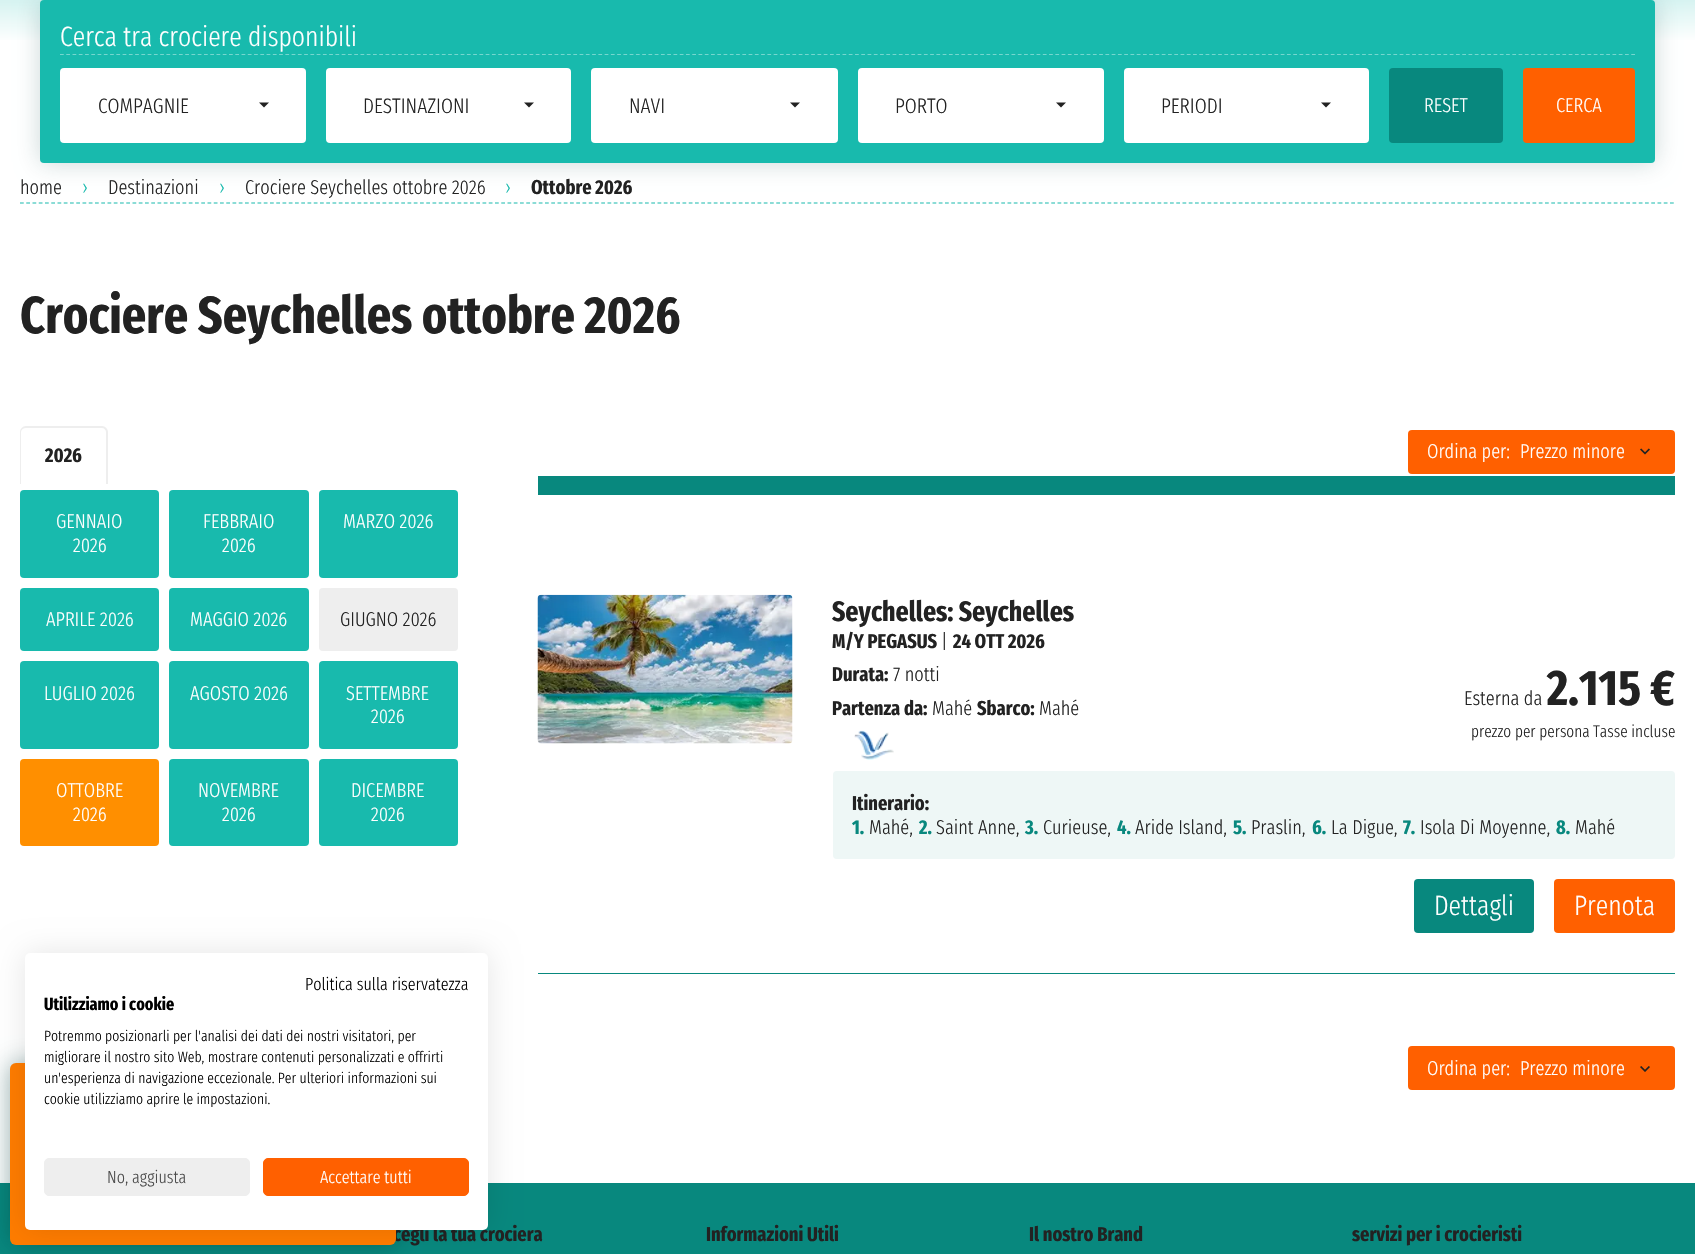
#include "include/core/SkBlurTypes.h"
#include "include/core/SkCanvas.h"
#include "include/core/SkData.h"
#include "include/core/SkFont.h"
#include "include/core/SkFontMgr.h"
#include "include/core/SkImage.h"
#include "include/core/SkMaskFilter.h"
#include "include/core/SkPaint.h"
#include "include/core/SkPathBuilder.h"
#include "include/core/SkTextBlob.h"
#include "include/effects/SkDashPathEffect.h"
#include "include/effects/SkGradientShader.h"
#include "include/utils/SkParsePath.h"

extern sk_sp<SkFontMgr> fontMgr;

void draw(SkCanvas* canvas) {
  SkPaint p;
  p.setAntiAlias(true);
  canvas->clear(SK_ColorWHITE);
  {
    const SkColor colors[] = {SkColorSetRGB(24, 186, 173), SK_ColorWHITE};
    const float stops[] = {0, 0.1f};
    const SkPoint ends[] = {{847, -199}, {848, 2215}};
    p.setShader(SkGradientShader::MakeLinear(ends, colors, stops, 2, SkTileMode::kClamp));
    p.setAlpha(255);
  }
  canvas->drawRect(SkRect::MakeLTRB(0, 0, 1695, 40), p);
  p.setShader(nullptr);
  p.setColor(SkColorSetARGB(51, 0, 60, 60));
  p.setMaskFilter(SkMaskFilter::MakeBlur(kNormal_SkBlurStyle, 12.5f));
  canvas->drawRoundRect(SkRect::MakeLTRB(40, 0, 1655, 163), 4, 4, p);
  p.setMaskFilter(nullptr);
  p.setColor(SkColorSetRGB(24, 186, 173));
  canvas->drawRoundRect(SkRect::MakeLTRB(40, 0, 1655, 163), 4, 4, p);
  p.setStyle(SkPaint::kStroke_Style);
  p.setStrokeWidth(1.2f);
  p.setColor(SkColorSetRGB(118, 215, 207));
  p.setPathEffect(SkDashPathEffect::Make({{3.75f, 2.51f}}, 0));
  canvas->drawPath(SkPathBuilder().moveTo(60, 54.5f).lineTo(1635, 54.5f).detach(), p);
  p.setPathEffect(nullptr);
  p.setStyle(SkPaint::kFill_Style);
  p.setColor(SK_ColorWHITE);
  canvas->drawRoundRect(SkRect::MakeLTRB(60, 68, 306, 143), 4, 4, p);
  p.setColor(SkColorSetRGB(34, 34, 34));
  canvas->drawPath(SkPathBuilder().moveTo(259, 102.5f).lineTo(269, 102.5f).lineTo(264, 107.5f).close().detach(), p);
  p.setColor(SK_ColorWHITE);
  canvas->drawRoundRect(SkRect::MakeLTRB(326, 68, 571, 143), 4, 4, p);
  p.setColor(SkColorSetRGB(34, 34, 34));
  canvas->drawPath(SkPathBuilder().moveTo(524, 102.5f).lineTo(534, 102.5f).lineTo(529, 107.5f).close().detach(), p);
  p.setColor(SK_ColorWHITE);
  canvas->drawRoundRect(SkRect::MakeLTRB(591, 68, 838, 143), 4, 4, p);
  p.setColor(SkColorSetRGB(34, 34, 34));
  canvas->drawPath(SkPathBuilder().moveTo(790, 102.5f).lineTo(800, 102.5f).lineTo(795, 107.5f).close().detach(), p);
  p.setColor(SK_ColorWHITE);
  canvas->drawRoundRect(SkRect::MakeLTRB(858, 68, 1104, 143), 4, 4, p);
  p.setColor(SkColorSetRGB(34, 34, 34));
  canvas->drawPath(SkPathBuilder().moveTo(1056, 102.5f).lineTo(1066, 102.5f).lineTo(1061, 107.5f).close().detach(), p);
  p.setColor(SK_ColorWHITE);
  canvas->drawRoundRect(SkRect::MakeLTRB(1124, 68, 1369, 143), 4, 4, p);
  p.setColor(SkColorSetRGB(34, 34, 34));
  canvas->drawPath(SkPathBuilder().moveTo(1321, 102.5f).lineTo(1331, 102.5f).lineTo(1326, 107.5f).close().detach(), p);
  p.setColor(SkColorSetRGB(8, 136, 126));
  canvas->drawRoundRect(SkRect::MakeLTRB(1389, 68, 1503, 143), 4, 4, p);
  p.setColor(SkColorSetRGB(255, 96, 0));
  canvas->drawRoundRect(SkRect::MakeLTRB(1523, 68, 1635, 143), 4, 4, p);
  p.setStyle(SkPaint::kStroke_Style);
  p.setColor(SkColorSetRGB(24, 186, 173));
  p.setPathEffect(SkDashPathEffect::Make({{3.75f, 2.5f}}, 0));
  canvas->drawPath(SkPathBuilder().moveTo(20, 203).lineTo(1675, 203).detach(), p);
  p.setPathEffect(nullptr);
  p.setStyle(SkPaint::kFill_Style);
  p.setColor(SkColorSetRGB(238, 238, 238));
  canvas->drawPath(SkPathBuilder(SkPathFillType::kEvenOdd).moveTo(26, 426).lineTo(102, 426).cubicTo(105, 426, 108, 429, 108, 432).lineTo(108, 484).lineTo(20, 484).lineTo(20, 432).cubicTo(20, 429, 23, 426, 26, 426).close().moveTo(26, 428).lineTo(102, 428).cubicTo(104, 428, 106, 430, 106, 432).lineTo(106, 484).lineTo(21, 484).lineTo(21, 432).cubicTo(21, 430, 23, 428, 26, 428).close().detach(), p);
  p.setColor(SkColorSetRGB(24, 186, 173));
  canvas->drawRoundRect(SkRect::MakeLTRB(20, 490, 159, 578), 4, 4, p);
  canvas->drawRoundRect(SkRect::MakeLTRB(169, 490, 309, 578), 4, 4, p);
  canvas->drawRoundRect(SkRect::MakeLTRB(319, 490, 458, 578), 4, 4, p);
  canvas->drawRoundRect(SkRect::MakeLTRB(20, 588, 159, 651), 4, 4, p);
  canvas->drawRoundRect(SkRect::MakeLTRB(169, 588, 309, 651), 4, 4, p);
  p.setColor(SkColorSetRGB(238, 238, 238));
  canvas->drawRoundRect(SkRect::MakeLTRB(319, 588, 458, 651), 4, 4, p);
  p.setColor(SkColorSetRGB(24, 186, 173));
  canvas->drawRoundRect(SkRect::MakeLTRB(20, 661, 159, 749), 4, 4, p);
  canvas->drawRoundRect(SkRect::MakeLTRB(169, 661, 309, 749), 4, 4, p);
  canvas->drawRoundRect(SkRect::MakeLTRB(319, 661, 458, 749), 4, 4, p);
  p.setColor(SkColorSetRGB(255, 143, 0));
  canvas->drawRoundRect(SkRect::MakeLTRB(20, 759, 159, 846), 4, 4, p);
  p.setColor(SkColorSetRGB(24, 186, 173));
  canvas->drawRoundRect(SkRect::MakeLTRB(169, 759, 309, 846), 4, 4, p);
  canvas->drawRoundRect(SkRect::MakeLTRB(319, 759, 458, 846), 4, 4, p);
  p.setColor(SkColorSetRGB(8, 136, 126));
  canvas->drawRect(SkRect::MakeLTRB(538, 476, 1675, 495), p);
  p.setColor(SkColorSetRGB(255, 96, 0));
  canvas->drawRoundRect(SkRect::MakeLTRB(1408, 430, 1675, 474), 4, 4, p);
  canvas->drawImageRect(SkImages::DeferredFromEncodedData(SkData::MakeFromFileName("images/1.png")), SkRect::MakeLTRB(1640, 448, 1650, 455), SkSamplingOptions());
  p.setColor(SkColorSetRGB(8, 136, 126));
  canvas->drawRect(SkRect::MakeLTRB(538, 973, 1675, 974), p);
  canvas->drawImageRect(SkImages::DeferredFromEncodedData(SkData::MakeFromFileName("images/2.png")), SkRect::MakeLTRB(537, 594, 793, 744), SkSamplingOptions());
  canvas->drawImageRect(SkImages::DeferredFromEncodedData(SkData::MakeFromFileName("images/3.png")), SkRect::MakeLTRB(854, 730, 894, 760), SkSamplingOptions());
  p.setColor(SkColorSetRGB(238, 247, 246));
  canvas->drawRoundRect(SkRect::MakeLTRB(833, 771, 1675, 859), 4, 4, p);
  p.setColor(SkColorSetRGB(8, 136, 126));
  canvas->drawRoundRect(SkRect::MakeLTRB(1414, 879, 1534, 933), 4, 4, p);
  p.setColor(SkColorSetRGB(255, 96, 0));
  canvas->drawRoundRect(SkRect::MakeLTRB(1554, 879, 1675, 933), 4, 4, p);
  canvas->drawRoundRect(SkRect::MakeLTRB(1408, 1046, 1675, 1090), 4, 4, p);
  canvas->drawImageRect(SkImages::DeferredFromEncodedData(SkData::MakeFromFileName("images/4.png")), SkRect::MakeLTRB(1640, 1066, 1650, 1072), SkSamplingOptions());
  p.setColor(SkColorSetRGB(8, 136, 126));
  canvas->drawRect(SkRect::MakeLTRB(0, 1183, 1695, 1254), p);
  p.setColor(SkColorSetARGB(102, 0, 60, 60));
  p.setMaskFilter(SkMaskFilter::MakeBlur(kNormal_SkBlurStyle, 12.5f));
  canvas->drawRoundRect(SkRect::MakeLTRB(10, 1063, 396, 1245), 6, 6, p);
  p.setMaskFilter(nullptr);
  SkFont font1(fontMgr->matchFamilyStyle("Fira Sans Extra Condensed", SkFontStyle(300, SkFontStyle::kNormal_Width, SkFontStyle::kUpright_Slant)), 28);
  font1.setSubpixel(true);
  p.setColor(SK_ColorWHITE);
  canvas->drawString("Cerca tra crociere disponibili", 60, 46, font1, p);
  SkFont font2(fontMgr->matchFamilyStyle("Fira Sans Extra Condensed", SkFontStyle(300, SkFontStyle::kNormal_Width, SkFontStyle::kUpright_Slant)), 21);
  font2.setSubpixel(true);
  p.setColor(SkColorSetRGB(34, 34, 34));
  canvas->drawString("COMPAGNIE", 98, 113, font2, p);
  canvas->drawString("DESTINAZIONI", 363, 113, font2, p);
  canvas->drawString("NAVI", 629, 113, font2, p);
  canvas->drawString("PORTO", 895, 113, font2, p);
  canvas->drawString("PERIODI", 1161, 113, font2, p);
  SkFont font3(fontMgr->matchFamilyStyle("Fira Sans Extra Condensed", SkFontStyle(300, SkFontStyle::kNormal_Width, SkFontStyle::kUpright_Slant)), 20);
  font3.setSubpixel(true);
  p.setColor(SK_ColorWHITE);
  canvas->drawString("RESET", 1424, 112, font3, p);
  canvas->drawString("CERCA", 1556, 112, font3, p);
  p.setColor(SkColorSetRGB(34, 34, 34));
  canvas->drawString("home", 20, 194, font3, p);
  p.setColor(SkColorSetRGB(24, 186, 173));
  canvas->drawString("›", 82, 194, font3, p);
  p.setColor(SkColorSetRGB(34, 34, 34));
  canvas->drawString("Destinazioni", 108, 194, font3, p);
  p.setColor(SkColorSetRGB(24, 186, 173));
  canvas->drawString("›", 219, 194, font3, p);
  p.setColor(SkColorSetRGB(34, 34, 34));
  canvas->drawString("Crociere Seychelles ottobre 2026", 245, 194, font3, p);
  p.setColor(SkColorSetRGB(24, 186, 173));
  canvas->drawString("›", 505, 194, font3, p);
  SkFont font4(fontMgr->matchFamilyStyle("Fira Sans Extra Condensed", SkFontStyle::Bold()), 20);
  font4.setSubpixel(true);
  p.setColor(SkColorSetRGB(34, 34, 34));
  canvas->drawString("Ottobre 2026", 531, 194, font4, p);
  SkFont font5(fontMgr->matchFamilyStyle("Fira Sans Extra Condensed", SkFontStyle::Bold()), 52);
  font5.setSubpixel(true);
  canvas->drawString("Crociere Seychelles ottobre 2026", 20, 333, font5, p);
  canvas->drawString("2026", 45, 462, font4, p);
  p.setColor(SK_ColorWHITE);
  canvas->drawString("GENNAIO", 56, 528, font3, p);
  canvas->drawString("2026", 73, 552, font3, p);
  canvas->drawString("FEBBRAIO", 203, 528, font3, p);
  canvas->drawString("2026", 222, 552, font3, p);
  canvas->drawString("MARZO 2026", 343, 528, font3, p);
  canvas->drawString("APRILE 2026", 46, 626, font3, p);
  canvas->drawString("MAGGIO 2026", 190, 626, font3, p);
  p.setColor(SkColorSetRGB(34, 34, 34));
  canvas->drawString("GIUGNO 2026", 340, 626, font3, p);
  p.setColor(SK_ColorWHITE);
  canvas->drawString("LUGLIO 2026", 44, 700, font3, p);
  canvas->drawString("AGOSTO 2026", 190, 700, font3, p);
  canvas->drawString("SETTEMBRE", 346, 700, font3, p);
  canvas->drawString("2026", 371, 723, font3, p);
  canvas->drawString("OTTOBRE", 56, 797, font3, p);
  canvas->drawString("2026", 73, 821, font3, p);
  canvas->drawString("NOVEMBRE", 198, 797, font3, p);
  canvas->drawString("2026", 222, 821, font3, p);
  canvas->drawString("DICEMBRE", 351, 797, font3, p);
  canvas->drawString("2026", 371, 821, font3, p);
  canvas->drawString("Ordina per:", 1427, 458, font3, p);
  canvas->drawString("Prezzo minore", 1520, 458, font3, p);
  SkFont font6(fontMgr->matchFamilyStyle("Fira Sans Extra Condensed", SkFontStyle::Bold()), 28);
  font6.setSubpixel(true);
  p.setColor(SkColorSetRGB(34, 34, 34));
  canvas->drawString("Seychelles: Seychelles", 832, 621, font6, p);
  canvas->drawString("M/Y PEGASUS", 832, 648, font4, p);
  canvas->drawString("|", 941, 648, font3, p);
  canvas->drawString("24 OTT 2026", 953, 648, font4, p);
  canvas->drawString("Durata:", 832, 681, font4, p);
  canvas->drawString("7 notti", 893, 681, font3, p);
  canvas->drawString("Partenza da:", 832, 715, font4, p);
  canvas->drawString("Mahé", 932, 715, font3, p);
  canvas->drawString("Sbarco:", 977, 715, font4, p);
  canvas->drawString("Mahé", 1039, 715, font3, p);
  canvas->drawString("Esterna da", 1464, 705, font3, p);
  SkFont font7(fontMgr->matchFamilyStyle("Fira Sans Extra Condensed", SkFontStyle::Bold()), 50);
  font7.setSubpixel(true);
  canvas->drawString("2.115 €", 1547, 705, font7, p);
  SkFont font8(fontMgr->matchFamilyStyle("Fira Sans Extra Condensed", SkFontStyle(300, SkFontStyle::kNormal_Width, SkFontStyle::kUpright_Slant)), 16.75f);
  font8.setSubpixel(true);
  canvas->drawString("prezzo per persona", 1471, 737, font8, p);
  canvas->drawString("Tasse incluse", 1593, 737, font8, p);
  canvas->drawString("Itinerario:", 852, 810, font4, p);
  p.setColor(SkColorSetRGB(8, 136, 126));
  canvas->drawString("1.", 852, 834, font4, p);
  p.setColor(SkColorSetRGB(34, 34, 34));
  canvas->drawString("Mahé,", 869, 834, font3, p);
  p.setColor(SkColorSetRGB(8, 136, 126));
  canvas->drawString("2.", 919, 834, font4, p);
  p.setColor(SkColorSetRGB(34, 34, 34));
  canvas->drawString("Saint Anne,", 936, 834, font3, p);
  p.setColor(SkColorSetRGB(8, 136, 126));
  canvas->drawString("3.", 1025, 834, font4, p);
  p.setColor(SkColorSetRGB(34, 34, 34));
  canvas->drawString("Curieuse,", 1043, 834, font3, p);
  p.setColor(SkColorSetRGB(8, 136, 126));
  canvas->drawString("4.", 1117, 834, font4, p);
  p.setColor(SkColorSetRGB(34, 34, 34));
  canvas->drawString("Aride Island,", 1135, 834, font3, p);
  p.setColor(SkColorSetRGB(8, 136, 126));
  canvas->drawString("5.", 1233, 834, font4, p);
  p.setColor(SkColorSetRGB(34, 34, 34));
  canvas->drawString("Praslin,", 1251, 834, font3, p);
  p.setColor(SkColorSetRGB(8, 136, 126));
  canvas->drawString("6.", 1312, 834, font4, p);
  p.setColor(SkColorSetRGB(34, 34, 34));
  canvas->drawString("La Digue,", 1331, 834, font3, p);
  p.setColor(SkColorSetRGB(8, 136, 126));
  canvas->drawString("7.", 1403, 834, font4, p);
  p.setColor(SkColorSetRGB(34, 34, 34));
  canvas->drawString("Isola Di Moyenne,", 1420, 834, font3, p);
  p.setColor(SkColorSetRGB(8, 136, 126));
  canvas->drawString("8.", 1556, 834, font4, p);
  p.setColor(SkColorSetRGB(34, 34, 34));
  canvas->drawString("Mahé", 1575, 834, font3, p);
  p.setColor(SK_ColorWHITE);
  canvas->drawString("Dettagli", 1434, 915, font1, p);
  canvas->drawString("Prenota", 1574, 915, font1, p);
  canvas->drawString("Ordina per:", 1427, 1075, font3, p);
  canvas->drawString("Prezzo minore", 1520, 1075, font3, p);
  p.setColor(SkColorSetRGB(34, 34, 34));
  canvas->drawString("cegli la tua crociera", 393, 1241, font4, p);
  canvas->drawString("Informazioni Utili", 706, 1241, font4, p);
  canvas->drawString("Il nostro Brand", 1029, 1241, font4, p);
  canvas->drawString("servizi per i crocieristi", 1352, 1241, font4, p);
  p.setColor(SkColorSetRGB(255, 124, 0));
  canvas->drawRoundRect(SkRect::MakeLTRB(10, 1063, 396, 1245), 6, 6, p);
  p.setColor(SkColorSetARGB(26, 0, 0, 0));
  p.setMaskFilter(SkMaskFilter::MakeBlur(kNormal_SkBlurStyle, 15));
  canvas->drawRoundRect(SkRect::MakeLTRB(25, 953, 488, 1230), 5, 5, p);
  p.setMaskFilter(nullptr);
  p.setColor(SK_ColorWHITE);
  canvas->drawRoundRect(SkRect::MakeLTRB(25, 953, 488, 1230), 5, 5, p);
  p.setColor(SkColorSetRGB(255, 96, 0));
  canvas->drawRoundRect(SkRect::MakeLTRB(263.5f, 1158.5f, 468.5f, 1195.5f), 4.5f, 4.5f, p);
  p.setStyle(SkPaint::kStroke_Style);
  p.setStrokeWidth(1);
  canvas->drawRoundRect(SkRect::MakeLTRB(263.5f, 1158.5f, 468.5f, 1195.5f), 4.5f, 4.5f, p);
  SkFont font9(fontMgr->matchFamilyStyle("Fira Sans Extra Condensed", SkFontStyle(300, SkFontStyle::kNormal_Width, SkFontStyle::kUpright_Slant)), 17.5f);
  font9.setSubpixel(true);
  p.setStyle(SkPaint::kFill_Style);
  p.setColor(SK_ColorWHITE);
  canvas->drawString("Accettare tutti", 320, 1183, font9, p);
  p.setColor(SkColorSetRGB(238, 238, 238));
  canvas->drawRoundRect(SkRect::MakeLTRB(44.5f, 1158.5f, 249.5f, 1195.5f), 4.5f, 4.5f, p);
  p.setStyle(SkPaint::kStroke_Style);
  canvas->drawRoundRect(SkRect::MakeLTRB(44.5f, 1158.5f, 249.5f, 1195.5f), 4.5f, 4.5f, p);
  p.setStyle(SkPaint::kFill_Style);
  p.setColor(SkColorSetRGB(74, 74, 74));
  canvas->drawString("No, aggiusta", 107, 1183, font9, p);
  SkFont font10(fontMgr->matchFamilyStyle("Fira Sans Extra Condensed", SkFontStyle::Bold()), 17.5f);
  font10.setSubpixel(true);
  p.setColor(SK_ColorBLACK);
  canvas->drawString("Utilizziamo i cookie", 44, 1010, font10, p);
  SkFont font11(fontMgr->matchFamilyStyle("Fira Sans Extra Condensed", SkFontStyle(300, SkFontStyle::kNormal_Width, SkFontStyle::kUpright_Slant)), 15);
  font11.setSubpixel(true);
  canvas->drawString("cookie utilizziamo aprire le impostazioni.", 44, 1104, font11, p);
  canvas->drawString("un'esperienza di navigazione eccezionale. Per ulteriori informazioni sui", 44, 1083, font11, p);
  canvas->drawString("migliorare il nostro sito Web, mostrare contenuti personalizzati e offrirti", 44, 1062, font11, p);
  canvas->drawString("Potremmo posizionarli per l'analisi dei dati dei nostri visitatori, per", 44, 1041, font11, p);
  canvas->drawString("Politica sulla riservatezza", 305, 990, font9, p);
}
